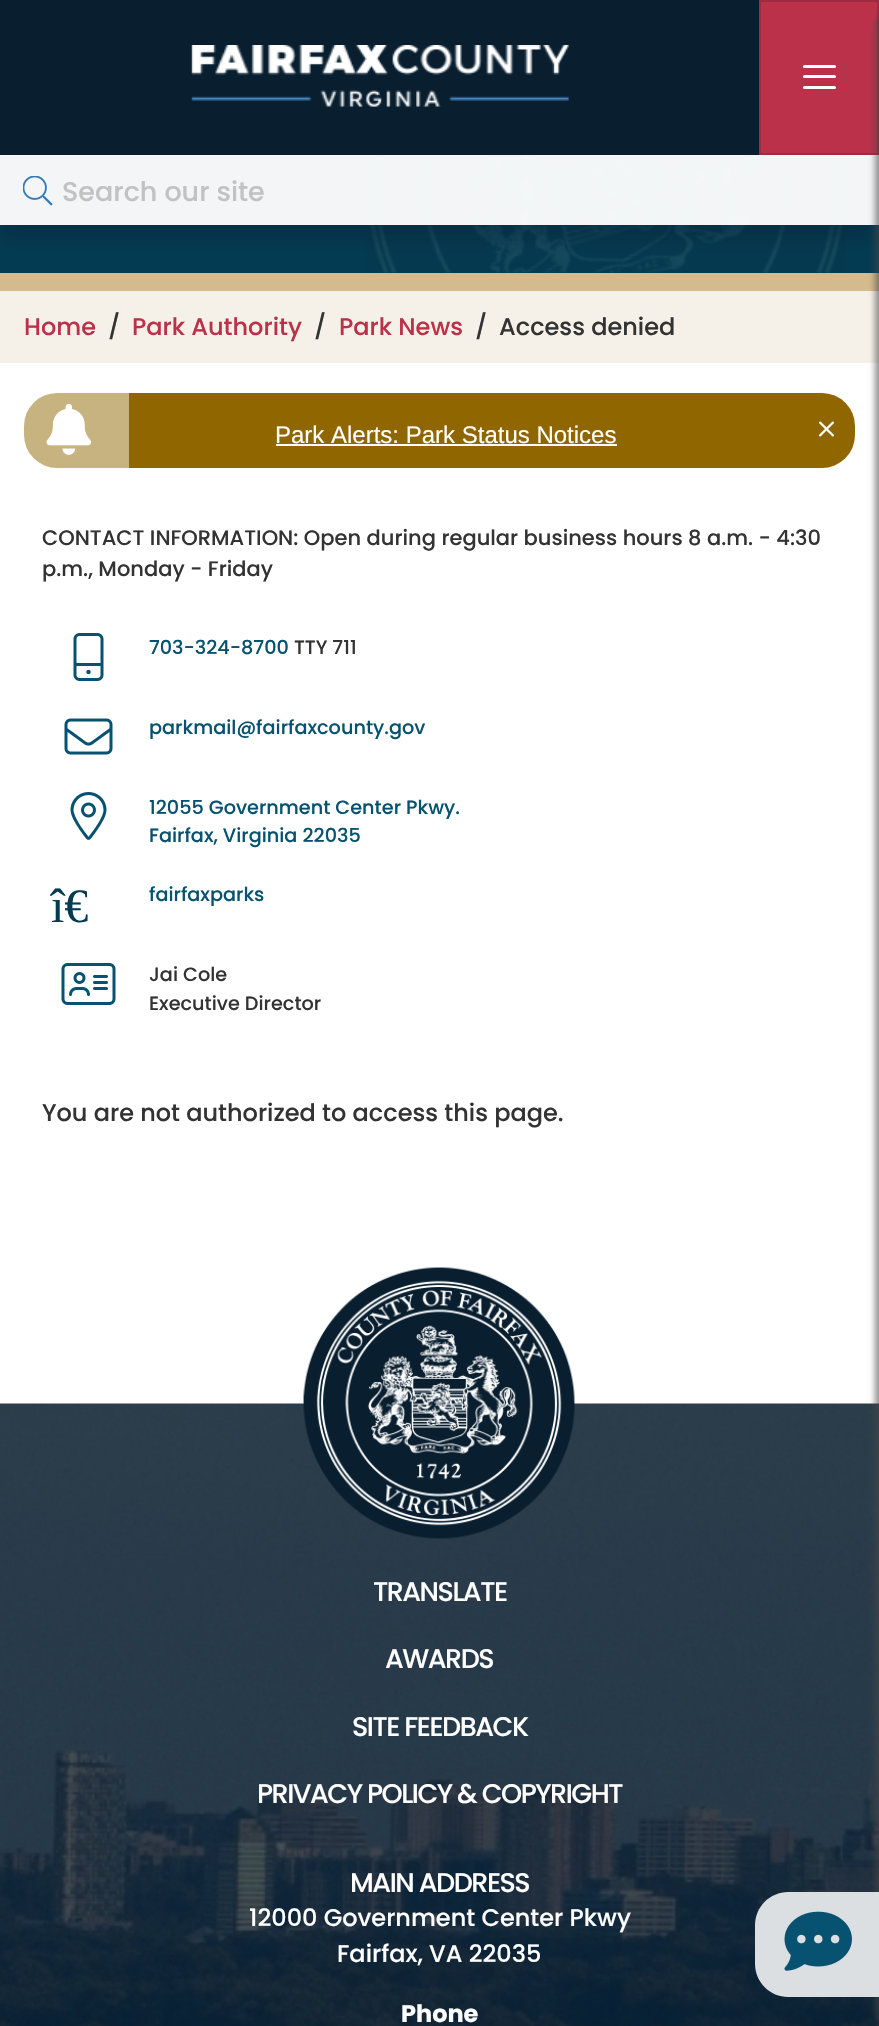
#include "include/core/SkBlurTypes.h"
#include "include/core/SkCanvas.h"
#include "include/core/SkData.h"
#include "include/core/SkFont.h"
#include "include/core/SkFontMgr.h"
#include "include/core/SkImage.h"
#include "include/core/SkMaskFilter.h"
#include "include/core/SkPaint.h"
#include "include/core/SkPathBuilder.h"
#include "include/core/SkTextBlob.h"
#include "include/effects/SkDashPathEffect.h"
#include "include/effects/SkGradientShader.h"
#include "include/utils/SkParsePath.h"

extern sk_sp<SkFontMgr> fontMgr;

void draw(SkCanvas* canvas) {
  SkPaint p;
  p.setAntiAlias(true);
  auto spacedText = [&](const char* s, float x, float y, const SkFont& font, const SkPaint& ink, float letter, float word) {
    std::vector<SkGlyphID> glyphs(font.countText(s, strlen(s), SkTextEncoding::kUTF8));
    std::vector<float> xs(glyphs.size());
    font.textToGlyphs(s, strlen(s), SkTextEncoding::kUTF8, glyphs);
    font.getXPos(glyphs, xs, x);
    float extra = 0;
    for (size_t i = 0; i < glyphs.size(); i++) {
      xs[i] += extra;
      extra += letter + word * (glyphs[i] == font.unicharToGlyph(' '));
    }
    canvas->drawTextBlob(SkTextBlob::MakeFromPosHGlyphs(glyphs, xs, y, font), 0, 0, ink);
  };
  canvas->clear(SK_ColorWHITE);
  p.setColor(SkColorSetRGB(3, 59, 82));
  canvas->drawRect(SkRect::MakeLTRB(0, 155, 879, 273), p);
  canvas->drawImageRect(SkImages::DeferredFromEncodedData(SkData::MakeFromFileName("images/4.png")), SkRect::MakeLTRB(367, 155, 846, 273), SkSamplingOptions());
  canvas->save();
  canvas->clipRect(SkRect::MakeLTRB(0, 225, 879, 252));
  p.setColor(SkColorSetARGB(89, 9, 31, 48));
  p.setMaskFilter(SkMaskFilter::MakeBlur(kNormal_SkBlurStyle, 7.5f));
  canvas->drawRect(SkRect::MakeLTRB(0, 15, 879, 240), p);
  p.setMaskFilter(nullptr);
  canvas->restore();
  p.setColor(SkColorSetRGB(9, 31, 48));
  canvas->drawRect(SkRect::MakeLTRB(0, 0, 759, 155), p);
  canvas->drawImageRect(SkImages::DeferredFromEncodedData(SkData::MakeFromFileName("images/1.png")), SkRect::MakeLTRB(191, 45, 569, 107), SkSamplingOptions());
  p.setColor(SkColorSetRGB(188, 49, 74));
  canvas->drawRect(SkRect::MakeLTRB(760, 1, 878, 154), p);
  p.setStyle(SkPaint::kStroke_Style);
  p.setStrokeWidth(2);
  p.setColor(SkColorSetRGB(160, 42, 63));
  canvas->drawRect(SkRect::MakeLTRB(760, 1, 878, 154), p);
  p.setStyle(SkPaint::kFill_Style);
  p.setColor(SK_ColorWHITE);
  canvas->drawRoundRect(SkRect::MakeLTRB(803, 65, 836, 68), 1.5f, 1.5f, p);
  canvas->drawRoundRect(SkRect::MakeLTRB(803, 75, 836, 78), 1.5f, 1.5f, p);
  canvas->drawRoundRect(SkRect::MakeLTRB(803, 86, 836, 89), 1.5f, 1.5f, p);
  p.setColor(SkColorSetARGB(242, 255, 255, 255));
  canvas->drawRect(SkRect::MakeLTRB(0, 155, 879, 225), p);
  canvas->drawImageRect(SkImages::DeferredFromEncodedData(SkData::MakeFromFileName("images/2.png")), SkRect::MakeLTRB(23, 176, 53, 206), SkSamplingOptions());
  p.setColor(SkColorSetRGB(246, 241, 232));
  canvas->drawRect(SkRect::MakeLTRB(0, 291, 879, 363), p);
  p.setColor(SkColorSetRGB(211, 187, 141));
  canvas->drawRect(SkRect::MakeLTRB(0, 273, 879, 291), p);
  canvas->drawImageRect(SkImages::DeferredFromEncodedData(SkData::MakeFromFileName("images/11.png")), SkRect::MakeLTRB(0, 1403, 879, 2026), SkSamplingOptions());
  p.setColor(SkColorSetARGB(153, 70, 70, 70));
  p.setMaskFilter(SkMaskFilter::MakeBlur(kNormal_SkBlurStyle, 3));
  canvas->drawRoundRect(SkRect::MakeLTRB(875, 5, 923, 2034), 35, 35, p);
  p.setMaskFilter(nullptr);
  p.setColor(SkColorSetRGB(219, 223, 225));
  canvas->drawPath(SkPathBuilder().moveTo(788, 1892).lineTo(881, 1892).lineTo(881, 1997).lineTo(788, 1997).cubicTo(770, 1997, 755, 1982, 755, 1964).lineTo(755, 1925).cubicTo(755, 1907, 770, 1892, 788, 1892).close().detach(), p);
  canvas->drawImageRect(SkImages::DeferredFromEncodedData(SkData::MakeFromFileName("images/3.png")), SkRect::MakeLTRB(784, 1911, 852, 1971), SkSamplingOptions());
  p.setColor(SkColorSetRGB(143, 102, 0));
  canvas->drawRoundRect(SkRect::MakeLTRB(24, 393, 855, 468), 33, 33, p);
  p.setColor(SkColorSetARGB(128, 255, 255, 255));
  canvas->drawRect(SkRect::MakeLTRB(24, 393, 129, 468), p);
  canvas->drawImageRect(SkImages::DeferredFromEncodedData(SkData::MakeFromFileName("images/5.png")), SkRect::MakeLTRB(46, 403, 92, 455), SkSamplingOptions());
  p.setColor(SK_ColorWHITE);
  canvas->drawRect(SkRect::MakeLTRB(276, 444, 617, 446), p);
  canvas->drawImageRect(SkImages::DeferredFromEncodedData(SkData::MakeFromFileName("images/6.png")), SkRect::MakeLTRB(819, 421, 834, 437), SkSamplingOptions());
  canvas->drawImageRect(SkImages::DeferredFromEncodedData(SkData::MakeFromFileName("images/7.png")), SkRect::MakeLTRB(73, 633, 104, 681), SkSamplingOptions());
  canvas->drawImageRect(SkImages::DeferredFromEncodedData(SkData::MakeFromFileName("images/8.png")), SkRect::MakeLTRB(64, 718, 113, 755), SkSamplingOptions());
  canvas->drawImageRect(SkImages::DeferredFromEncodedData(SkData::MakeFromFileName("images/9.png")), SkRect::MakeLTRB(70, 792, 107, 840), SkSamplingOptions());
  canvas->drawImageRect(SkImages::DeferredFromEncodedData(SkData::MakeFromFileName("images/10.png")), SkRect::MakeLTRB(61, 963, 116, 1005), SkSamplingOptions());
  canvas->drawImageRect(SkImages::DeferredFromEncodedData(SkData::MakeFromFileName("images/12.png")), SkRect::MakeLTRB(303, 1267, 575, 1539), SkSamplingOptions());
  SkFont font1(fontMgr->matchFamilyStyle("Poppins", SkFontStyle(500, SkFontStyle::kNormal_Width, SkFontStyle::kUpright_Slant)), 27);
  font1.setSubpixel(true);
  p.setColor(SkColorSetRGB(194, 194, 194));
  canvas->drawString("Search our site", 62, 201, font1, p);
  SkFont font2(fontMgr->matchFamilyStyle("Poppins", SkFontStyle(500, SkFontStyle::kNormal_Width, SkFontStyle::kUpright_Slant)), 24);
  font2.setSubpixel(true);
  p.setColor(SkColorSetRGB(188, 49, 74));
  canvas->drawString("Home", 24, 335, font2, p);
  p.setColor(SkColorSetRGB(51, 51, 51));
  canvas->drawString("/", 108, 335, font2, p);
  p.setColor(SkColorSetRGB(188, 49, 74));
  canvas->drawString("Park Authority", 132, 335, font2, p);
  p.setColor(SkColorSetRGB(51, 51, 51));
  canvas->drawString("/", 314, 335, font2, p);
  p.setColor(SkColorSetRGB(188, 49, 74));
  canvas->drawString("Park News", 339, 335, font2, p);
  p.setColor(SkColorSetRGB(51, 51, 51));
  canvas->drawString("/", 475, 335, font2, p);
  canvas->drawString("Access denied", 499, 335, font2, p);
  SkFont font3(fontMgr->matchFamilyStyle("Liberation Sans", SkFontStyle::Normal()), 24);
  font3.setSubpixel(true);
  p.setColor(SK_ColorWHITE);
  canvas->drawString("Park Alerts: Park Status Notices", 275, 443, font3, p);
  SkFont font4(fontMgr->matchFamilyStyle("Poppins", SkFontStyle(500, SkFontStyle::kNormal_Width, SkFontStyle::kUpright_Slant)), 21);
  font4.setSubpixel(true);
  p.setColor(SkColorSetRGB(51, 51, 51));
  canvas->drawString("CONTACT INFORMATION: Open during regular business hours 8 a.m. - 4:30", 42, 545, font4, p);
  canvas->drawString("p.m., Monday - Friday", 42, 576, font4, p);
  SkFont font5(fontMgr->matchFamilyStyle("Poppins", SkFontStyle(500, SkFontStyle::kNormal_Width, SkFontStyle::kUpright_Slant)), 19.25f);
  font5.setSubpixel(true);
  p.setColor(SkColorSetRGB(7, 82, 112));
  canvas->drawString("703-324-8700", 149, 654, font5, p);
  p.setColor(SkColorSetRGB(51, 51, 51));
  canvas->drawString("TTY 711", 294, 654, font5, p);
  p.setColor(SkColorSetRGB(7, 82, 112));
  canvas->drawString("parkmail@fairfaxcounty.gov", 149, 734, font5, p);
  canvas->drawString("12055 Government Center Pkwy.", 149, 814, font5, p);
  canvas->drawString("Fairfax, Virginia 22035", 149, 842, font5, p);
  SkFont font6(fontMgr->matchFamilyStyle("Liberation Serif", SkFontStyle::Normal()), 48);
  font6.setSubpixel(true);
  p.setColor(SkColorSetRGB(3, 59, 82));
  canvas->drawString("î€", 51, 922, font6, p);
  p.setColor(SkColorSetRGB(7, 82, 112));
  canvas->drawString("fairfaxparks", 149, 901, font5, p);
  p.setColor(SkColorSetRGB(51, 51, 51));
  canvas->drawString("Jai Cole", 149, 981, font5, p);
  canvas->drawString("Executive Director", 149, 1010, font5, p);
  canvas->drawString("You are not authorized to access this page.", 42, 1121, font2, p);
  p.setColor(SK_ColorWHITE);
  spacedText("TRANSLATE", 373, 1601, font1, p, -1.5f, 0);
  spacedText("AWARDS", 385, 1668, font1, p, -1.5f, 0);
  spacedText("SITE FEEDBACK", 352, 1736, font1, p, -1.5f, 0);
  spacedText("PRIVACY POLICY & COPYRIGHT", 257, 1803, font1, p, -1.5f, 0);
  spacedText("MAIN ADDRESS", 350, 1892, font1, p, -1.5f, 0);
  canvas->drawString("12000 Government Center Pkwy", 249, 1926, font2, p);
  canvas->drawString("Fairfax, VA 22035", 337, 1962, font2, p);
  SkFont font7(fontMgr->matchFamilyStyle("Poppins", SkFontStyle::Bold()), 24);
  font7.setSubpixel(true);
  canvas->drawString("Phone", 401, 2022, font7, p);
}
